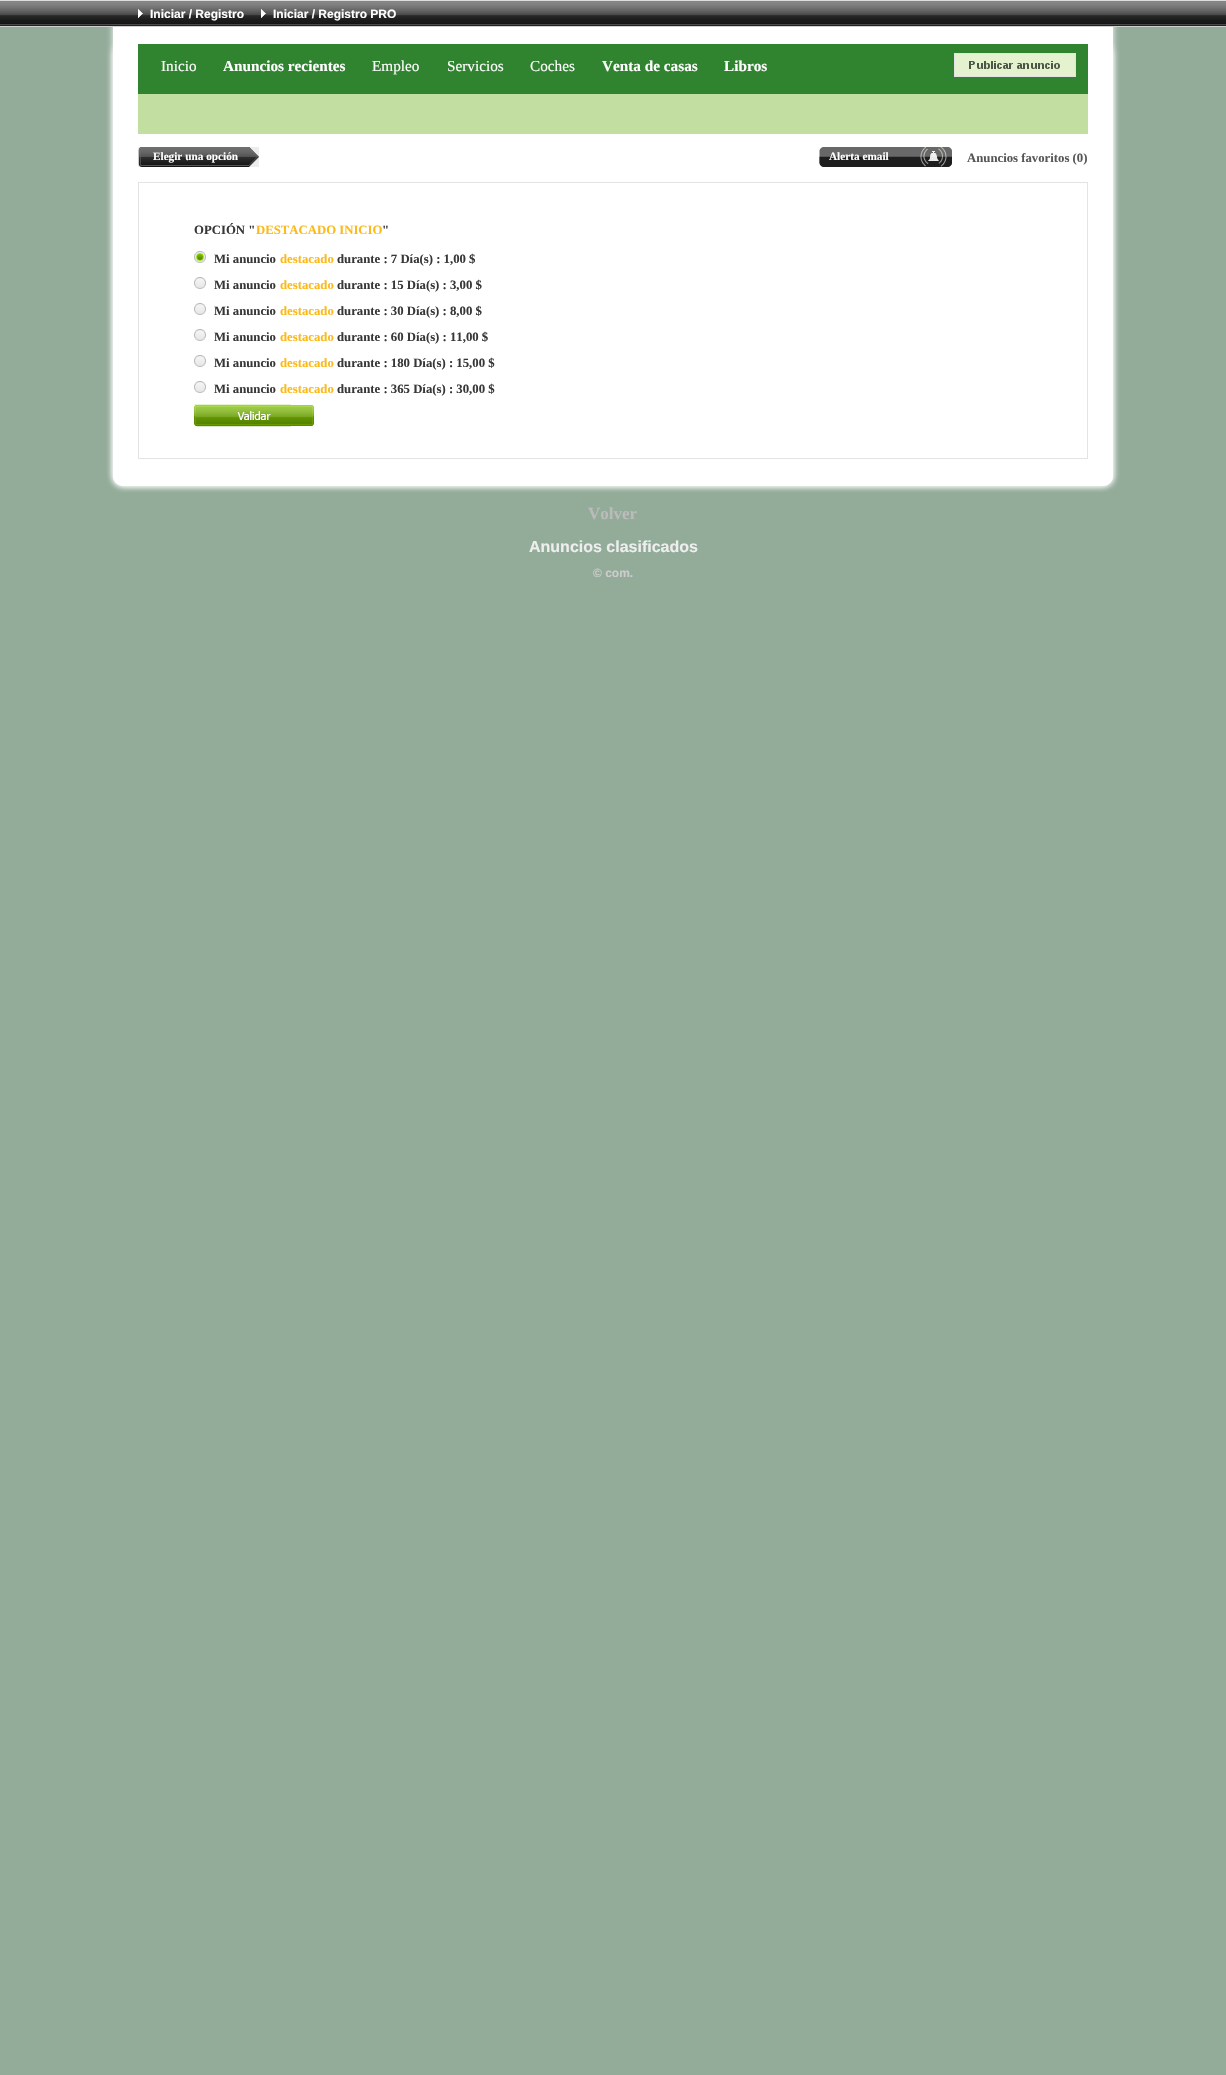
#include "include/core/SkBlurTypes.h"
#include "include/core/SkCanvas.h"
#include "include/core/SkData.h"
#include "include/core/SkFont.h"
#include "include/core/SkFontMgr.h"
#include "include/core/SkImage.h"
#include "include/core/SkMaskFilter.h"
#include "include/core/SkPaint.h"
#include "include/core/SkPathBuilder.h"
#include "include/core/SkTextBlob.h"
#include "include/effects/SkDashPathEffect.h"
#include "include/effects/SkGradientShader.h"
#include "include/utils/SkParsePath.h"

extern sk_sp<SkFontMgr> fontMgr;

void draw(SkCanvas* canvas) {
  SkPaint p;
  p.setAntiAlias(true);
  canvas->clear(SkColorSetRGB(147, 172, 154));
  p.setColor(SK_ColorWHITE);
  p.setMaskFilter(SkMaskFilter::MakeBlur(kNormal_SkBlurStyle, 3));
  canvas->drawRoundRect(SkRect::MakeLTRB(113, 0, 1113, 486), 10, 10, p);
  p.setMaskFilter(nullptr);
  canvas->drawRoundRect(SkRect::MakeLTRB(113, 0, 1113, 486), 10, 10, p);
  canvas->drawImageRect(SkImages::DeferredFromEncodedData(SkData::MakeFromFileName("images/1.png")), SkRect::MakeLTRB(0, 0, 1226, 27), SkSamplingOptions());
  canvas->drawImageRect(SkImages::DeferredFromEncodedData(SkData::MakeFromFileName("images/2.png")), SkRect::MakeLTRB(138, 9, 143, 18), SkSamplingOptions());
  canvas->drawImageRect(SkImages::DeferredFromEncodedData(SkData::MakeFromFileName("images/2.png")), SkRect::MakeLTRB(261, 9, 266, 18), SkSamplingOptions());
  p.setMaskFilter(SkMaskFilter::MakeBlur(kNormal_SkBlurStyle, 3));
  canvas->drawRoundRect(SkRect::MakeLTRB(113, 44, 1113, 486), 10, 10, p);
  p.setMaskFilter(nullptr);
  canvas->drawRoundRect(SkRect::MakeLTRB(113, 44, 1113, 486), 10, 10, p);
  p.setColor(SkColorSetRGB(194, 222, 160));
  canvas->drawRect(SkRect::MakeLTRB(138, 94, 1088, 134), p);
  p.setColor(SkColorSetRGB(48, 131, 47));
  canvas->drawRect(SkRect::MakeLTRB(138, 44, 1088, 94), p);
  canvas->drawImageRect(SkImages::DeferredFromEncodedData(SkData::MakeFromFileName("images/3.png")), SkRect::MakeLTRB(954, 53, 1076, 77), SkSamplingOptions());
  canvas->drawImageRect(SkImages::DeferredFromEncodedData(SkData::MakeFromFileName("images/4.png")), SkRect::MakeLTRB(138, 147, 153, 167), SkSamplingOptions());
  canvas->drawImageRect(SkImages::DeferredFromEncodedData(SkData::MakeFromFileName("images/5.png")), SkRect::MakeLTRB(153, 147, 238, 167), SkSamplingOptions());
  canvas->drawImageRect(SkImages::DeferredFromEncodedData(SkData::MakeFromFileName("images/6.png")), SkRect::MakeLTRB(238, 147, 259, 167), SkSamplingOptions());
  canvas->drawImageRect(SkImages::DeferredFromEncodedData(SkData::MakeFromFileName("images/7.png")), SkRect::MakeLTRB(819, 147, 952, 167), SkSamplingOptions());
  p.setStyle(SkPaint::kStroke_Style);
  p.setStrokeWidth(1);
  p.setColor(SkColorSetRGB(227, 227, 227));
  canvas->drawRect(SkRect::MakeLTRB(138.5f, 182.5f, 1087.5f, 458.5f), p);
  canvas->drawImageRect(SkImages::DeferredFromEncodedData(SkData::MakeFromFileName("images/8.png")), SkRect::MakeLTRB(194, 251, 206, 263), SkSamplingOptions());
  canvas->drawImageRect(SkImages::DeferredFromEncodedData(SkData::MakeFromFileName("images/9.png")), SkRect::MakeLTRB(194, 277, 206, 289), SkSamplingOptions());
  canvas->drawImageRect(SkImages::DeferredFromEncodedData(SkData::MakeFromFileName("images/9.png")), SkRect::MakeLTRB(194, 303, 206, 315), SkSamplingOptions());
  canvas->drawImageRect(SkImages::DeferredFromEncodedData(SkData::MakeFromFileName("images/9.png")), SkRect::MakeLTRB(194, 329, 206, 341), SkSamplingOptions());
  canvas->drawImageRect(SkImages::DeferredFromEncodedData(SkData::MakeFromFileName("images/9.png")), SkRect::MakeLTRB(194, 355, 206, 367), SkSamplingOptions());
  canvas->drawImageRect(SkImages::DeferredFromEncodedData(SkData::MakeFromFileName("images/9.png")), SkRect::MakeLTRB(194, 381, 206, 393), SkSamplingOptions());
  canvas->drawImageRect(SkImages::DeferredFromEncodedData(SkData::MakeFromFileName("images/10.png")), SkRect::MakeLTRB(194, 404, 314, 427), SkSamplingOptions());
  SkFont font1(fontMgr->matchFamilyStyle("Liberation Sans", SkFontStyle::Bold()), 12);
  font1.setSubpixel(true);
  p.setStyle(SkPaint::kFill_Style);
  p.setColor(SK_ColorWHITE);
  canvas->drawString("Iniciar / Registro", 150, 18, font1, p);
  canvas->drawString("Iniciar / Registro PRO", 273, 18, font1, p);
  SkFont font2(fontMgr->matchFamilyStyle("Liberation Serif", SkFontStyle::Normal()), 15.25f);
  font2.setSubpixel(true);
  canvas->drawString("Inicio", 161, 71, font2, p);
  SkFont font3(fontMgr->matchFamilyStyle("Liberation Serif", SkFontStyle::Bold()), 15.25f);
  font3.setSubpixel(true);
  canvas->drawString("Anuncios recientes", 223, 71, font3, p);
  canvas->drawString("Empleo", 372, 71, font2, p);
  canvas->drawString("Servicios", 447, 71, font2, p);
  canvas->drawString("Coches", 530, 71, font2, p);
  canvas->drawString("Venta de casas", 602, 71, font3, p);
  canvas->drawString("Libros", 724, 71, font3, p);
  SkFont font4(fontMgr->matchFamilyStyle("Liberation Serif", SkFontStyle::Bold()), 11.25f);
  font4.setSubpixel(true);
  canvas->drawString("Elegir una opción", 153, 160, font4, p);
  canvas->drawString("Alerta email", 829, 160, font4, p);
  SkFont font5(fontMgr->matchFamilyStyle("Liberation Serif", SkFontStyle::Bold()), 12.75f);
  font5.setSubpixel(true);
  p.setColor(SkColorSetRGB(86, 86, 86));
  canvas->drawString("Anuncios favoritos (0)", 967, 162, font5, p);
  p.setColor(SkColorSetRGB(55, 55, 55));
  canvas->drawString("OPCIÓN \"", 194, 234, font5, p);
  p.setColor(SkColorSetRGB(251, 186, 26));
  canvas->drawString("DESTACADO INICIO", 256, 234, font5, p);
  p.setColor(SkColorSetRGB(55, 55, 55));
  canvas->drawString("\"", 382, 234, font5, p);
  canvas->drawString("Mi anuncio", 214, 263, font5, p);
  p.setColor(SkColorSetRGB(251, 186, 26));
  canvas->drawString("destacado", 280, 263, font5, p);
  p.setColor(SkColorSetRGB(55, 55, 55));
  canvas->drawString("durante : 7 Día(s) : 1,00 $", 337, 263, font5, p);
  canvas->drawString("Mi anuncio", 214, 289, font5, p);
  p.setColor(SkColorSetRGB(251, 186, 26));
  canvas->drawString("destacado", 280, 289, font5, p);
  p.setColor(SkColorSetRGB(55, 55, 55));
  canvas->drawString("durante : 15 Día(s) : 3,00 $", 337, 289, font5, p);
  canvas->drawString("Mi anuncio", 214, 315, font5, p);
  p.setColor(SkColorSetRGB(251, 186, 26));
  canvas->drawString("destacado", 280, 315, font5, p);
  p.setColor(SkColorSetRGB(55, 55, 55));
  canvas->drawString("durante : 30 Día(s) : 8,00 $", 337, 315, font5, p);
  canvas->drawString("Mi anuncio", 214, 341, font5, p);
  p.setColor(SkColorSetRGB(251, 186, 26));
  canvas->drawString("destacado", 280, 341, font5, p);
  p.setColor(SkColorSetRGB(55, 55, 55));
  canvas->drawString("durante : 60 Día(s) : 11,00 $", 337, 341, font5, p);
  canvas->drawString("Mi anuncio", 214, 367, font5, p);
  p.setColor(SkColorSetRGB(251, 186, 26));
  canvas->drawString("destacado", 280, 367, font5, p);
  p.setColor(SkColorSetRGB(55, 55, 55));
  canvas->drawString("durante : 180 Día(s) : 15,00 $", 337, 367, font5, p);
  canvas->drawString("Mi anuncio", 214, 393, font5, p);
  p.setColor(SkColorSetRGB(251, 186, 26));
  canvas->drawString("destacado", 280, 393, font5, p);
  p.setColor(SkColorSetRGB(55, 55, 55));
  canvas->drawString("durante : 365 Día(s) : 30,00 $", 337, 393, font5, p);
  SkFont font6(fontMgr->matchFamilyStyle("Liberation Serif", SkFontStyle::Bold()), 17);
  font6.setSubpixel(true);
  p.setColor(SkColorSetRGB(187, 187, 187));
  canvas->drawString("Volver", 588, 519, font6, p);
  SkFont font7(fontMgr->matchFamilyStyle("Liberation Sans", SkFontStyle::Bold()), 16);
  font7.setSubpixel(true);
  p.setColor(SkColorSetRGB(238, 238, 238));
  canvas->drawString("Anuncios clasificados", 529, 552, font7, p);
  p.setColor(SkColorSetRGB(204, 204, 204));
  canvas->drawString("© com.", 593, 577, font1, p);
}
